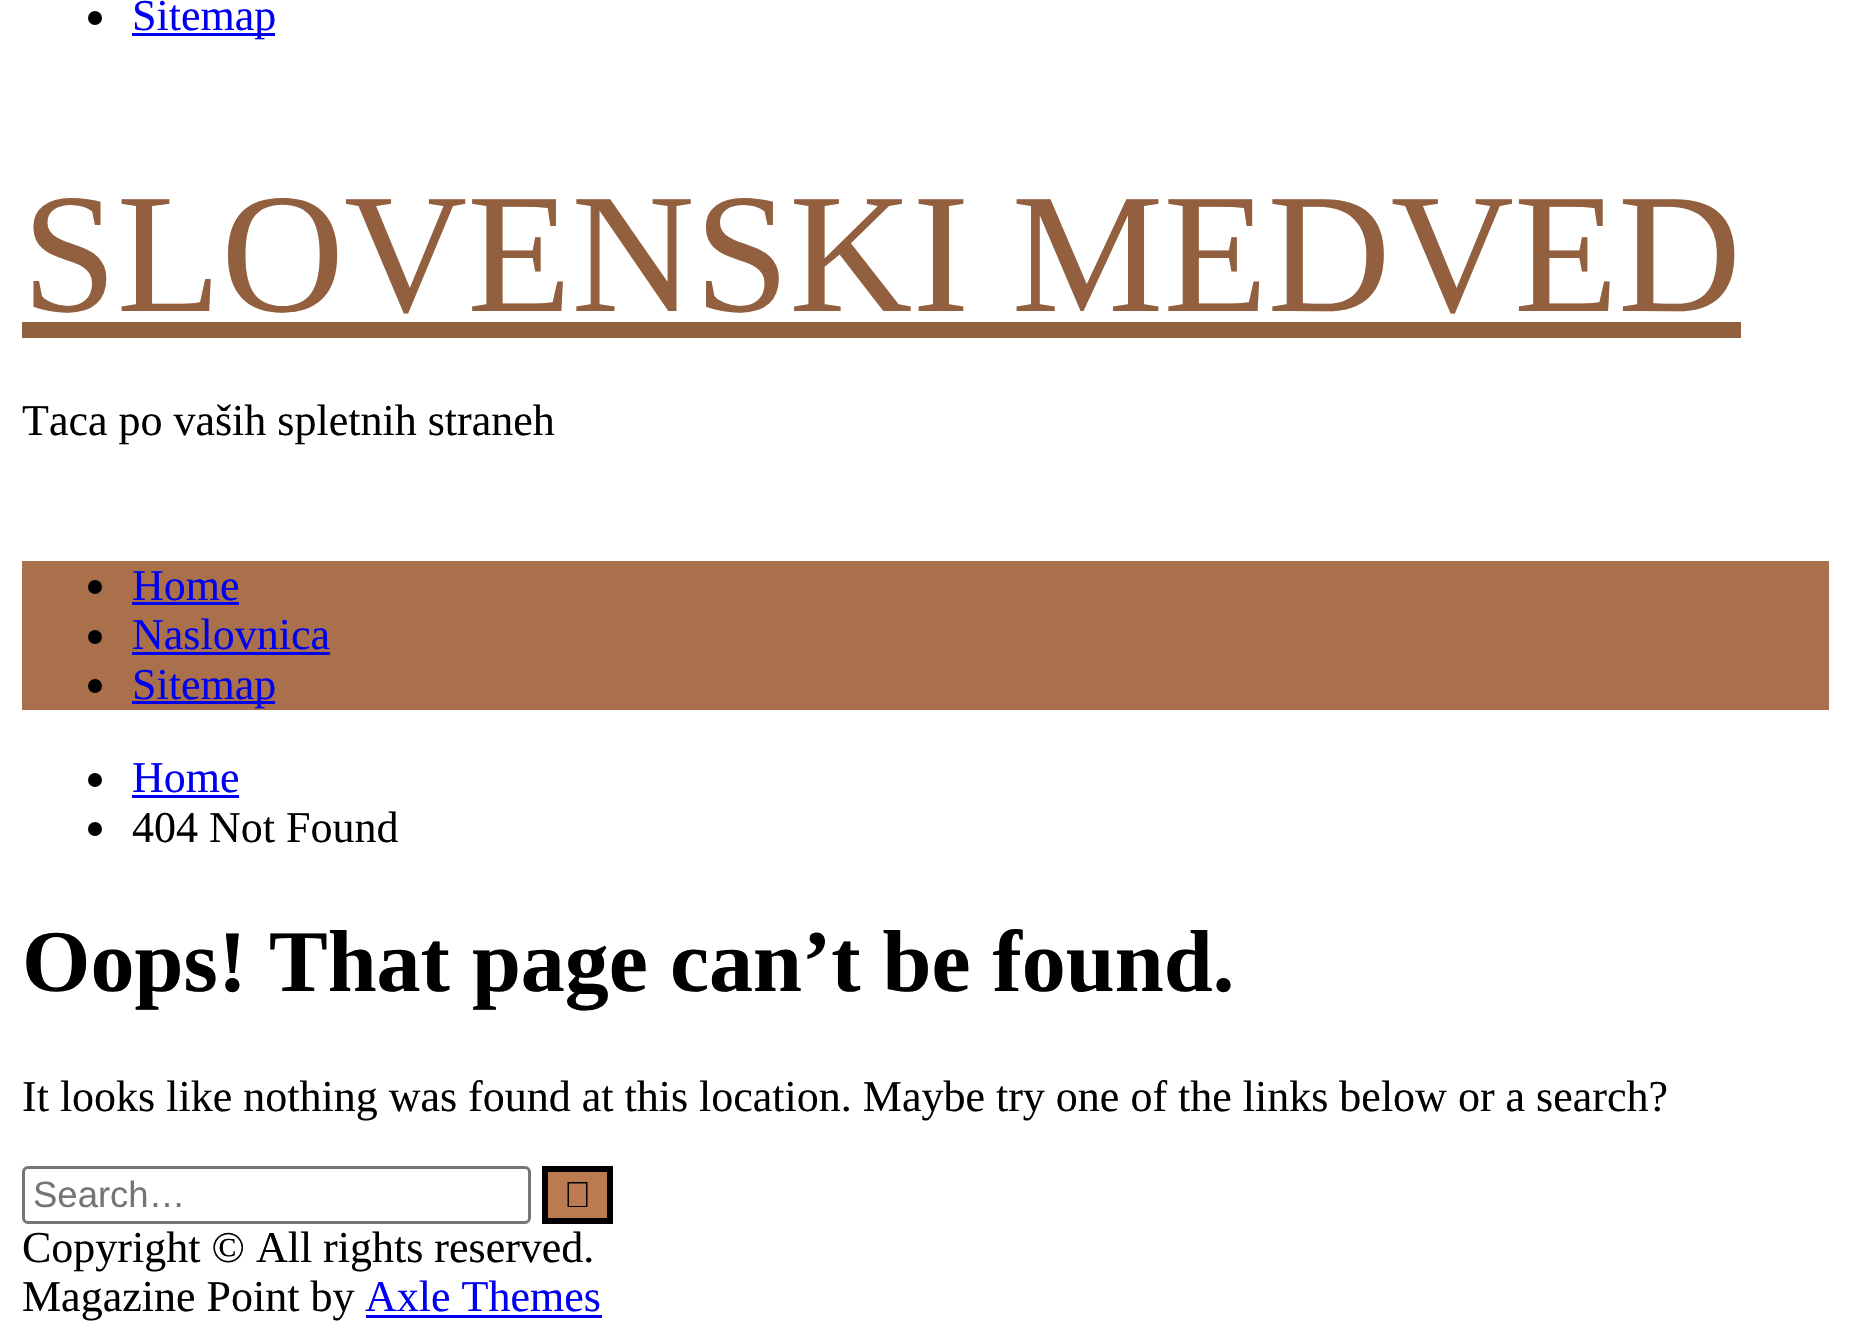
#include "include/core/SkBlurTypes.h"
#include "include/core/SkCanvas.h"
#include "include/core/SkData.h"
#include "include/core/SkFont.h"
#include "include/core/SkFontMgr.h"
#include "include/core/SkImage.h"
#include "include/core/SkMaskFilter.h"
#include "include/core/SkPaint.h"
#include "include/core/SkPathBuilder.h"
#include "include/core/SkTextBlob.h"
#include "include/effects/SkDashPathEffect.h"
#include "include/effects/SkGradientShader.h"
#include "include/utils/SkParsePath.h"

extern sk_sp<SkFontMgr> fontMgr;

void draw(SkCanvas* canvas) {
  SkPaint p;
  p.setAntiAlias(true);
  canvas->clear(SK_ColorWHITE);
  p.setColor(SK_ColorBLACK);
  canvas->drawCircle(95, 18, 7, p);
  p.setColor(SkColorSetRGB(0, 0, 238));
  canvas->drawRect(SkRect::MakeLTRB(132, 33, 275, 36), p);
  p.setColor(SkColorSetRGB(146, 95, 63));
  canvas->drawRect(SkRect::MakeLTRB(22, 322, 1741, 338), p);
  p.setColor(SkColorSetRGB(170, 112, 75));
  canvas->drawRect(SkRect::MakeLTRB(22, 561, 1829, 710), p);
  p.setColor(SK_ColorBLACK);
  canvas->drawCircle(95, 587, 7, p);
  p.setColor(SkColorSetRGB(0, 0, 238));
  canvas->drawRect(SkRect::MakeLTRB(132, 602, 239, 605), p);
  p.setColor(SK_ColorBLACK);
  canvas->drawCircle(95, 637, 7, p);
  p.setColor(SkColorSetRGB(0, 0, 238));
  canvas->drawRect(SkRect::MakeLTRB(132, 652, 330, 655), p);
  p.setColor(SK_ColorBLACK);
  canvas->drawCircle(95, 686, 7, p);
  p.setColor(SkColorSetRGB(0, 0, 238));
  canvas->drawRect(SkRect::MakeLTRB(132, 701, 275, 704), p);
  p.setColor(SK_ColorBLACK);
  canvas->drawCircle(95, 780, 7, p);
  p.setColor(SkColorSetRGB(0, 0, 238));
  canvas->drawRect(SkRect::MakeLTRB(132, 795, 239, 798), p);
  p.setColor(SK_ColorBLACK);
  canvas->drawCircle(95, 829, 7, p);
  p.setStyle(SkPaint::kStroke_Style);
  p.setStrokeWidth(3);
  p.setColor(SkColorSetRGB(118, 118, 118));
  canvas->drawRoundRect(SkRect::MakeLTRB(23.5f, 1167.5f, 529.5f, 1222.5f), 4.5f, 4.5f, p);
  p.setStyle(SkPaint::kFill_Style);
  p.setColor(SkColorSetRGB(188, 122, 81));
  canvas->drawRect(SkRect::MakeLTRB(545, 1169, 610, 1221), p);
  p.setStyle(SkPaint::kStroke_Style);
  p.setStrokeWidth(6);
  p.setColor(SK_ColorBLACK);
  canvas->drawRect(SkRect::MakeLTRB(545, 1169, 610, 1221), p);
  p.setStyle(SkPaint::kFill_Style);
  canvas->drawPath(SkPathBuilder().moveTo(567.5f, 1182).lineTo(587.5f, 1182).lineTo(587.5f, 1207).lineTo(567.5f, 1207).close().moveTo(569, 1183.5f).lineTo(569, 1206).lineTo(586, 1206).lineTo(586, 1183.5f).close().detach(), p);
  p.setColor(SkColorSetRGB(0, 0, 238));
  canvas->drawRect(SkRect::MakeLTRB(366, 1315, 602, 1318), p);
  SkFont font1(fontMgr->matchFamilyStyle("Liberation Serif", SkFontStyle::Normal()), 44);
  font1.setSubpixel(true);
  canvas->drawString("Sitemap", 132, 30, font1, p);
  SkFont font2(fontMgr->matchFamilyStyle("Liberation Serif", SkFontStyle::Normal()), 170.5f);
  font2.setSubpixel(true);
  p.setColor(SkColorSetRGB(146, 95, 63));
  canvas->drawString("SLOVENSKI MEDVED", 22, 311, font2, p);
  p.setColor(SK_ColorBLACK);
  canvas->drawString("Taca po vaših spletnih straneh", 22, 435, font1, p);
  p.setColor(SkColorSetRGB(0, 0, 238));
  canvas->drawString("Home", 132, 600, font1, p);
  canvas->drawString("Naslovnica", 132, 649, font1, p);
  canvas->drawString("Sitemap", 132, 699, font1, p);
  canvas->drawString("Home", 132, 792, font1, p);
  p.setColor(SK_ColorBLACK);
  canvas->drawString("404 Not Found", 132, 842, font1, p);
  SkFont font3(fontMgr->matchFamilyStyle("Liberation Serif", SkFontStyle::Bold()), 88);
  font3.setSubpixel(true);
  canvas->drawString("Oops! That page can’t be found.", 22, 991, font3, p);
  canvas->drawString("It looks like nothing was found at this location. Maybe try one of the links below or a search?", 22, 1111, font1, p);
  SkFont font4(fontMgr->matchFamilyStyle("Liberation Sans", SkFontStyle::Normal()), 36.5f);
  font4.setSubpixel(true);
  p.setColor(SkColorSetRGB(117, 117, 117));
  canvas->drawString("Search…", 33, 1207, font4, p);
  p.setColor(SK_ColorBLACK);
  canvas->drawString("Copyright © All rights reserved.", 22, 1262, font1, p);
  canvas->drawString("Magazine Point by", 22, 1311, font1, p);
  p.setColor(SkColorSetRGB(0, 0, 238));
  canvas->drawString("Axle Themes", 365, 1311, font1, p);
}
